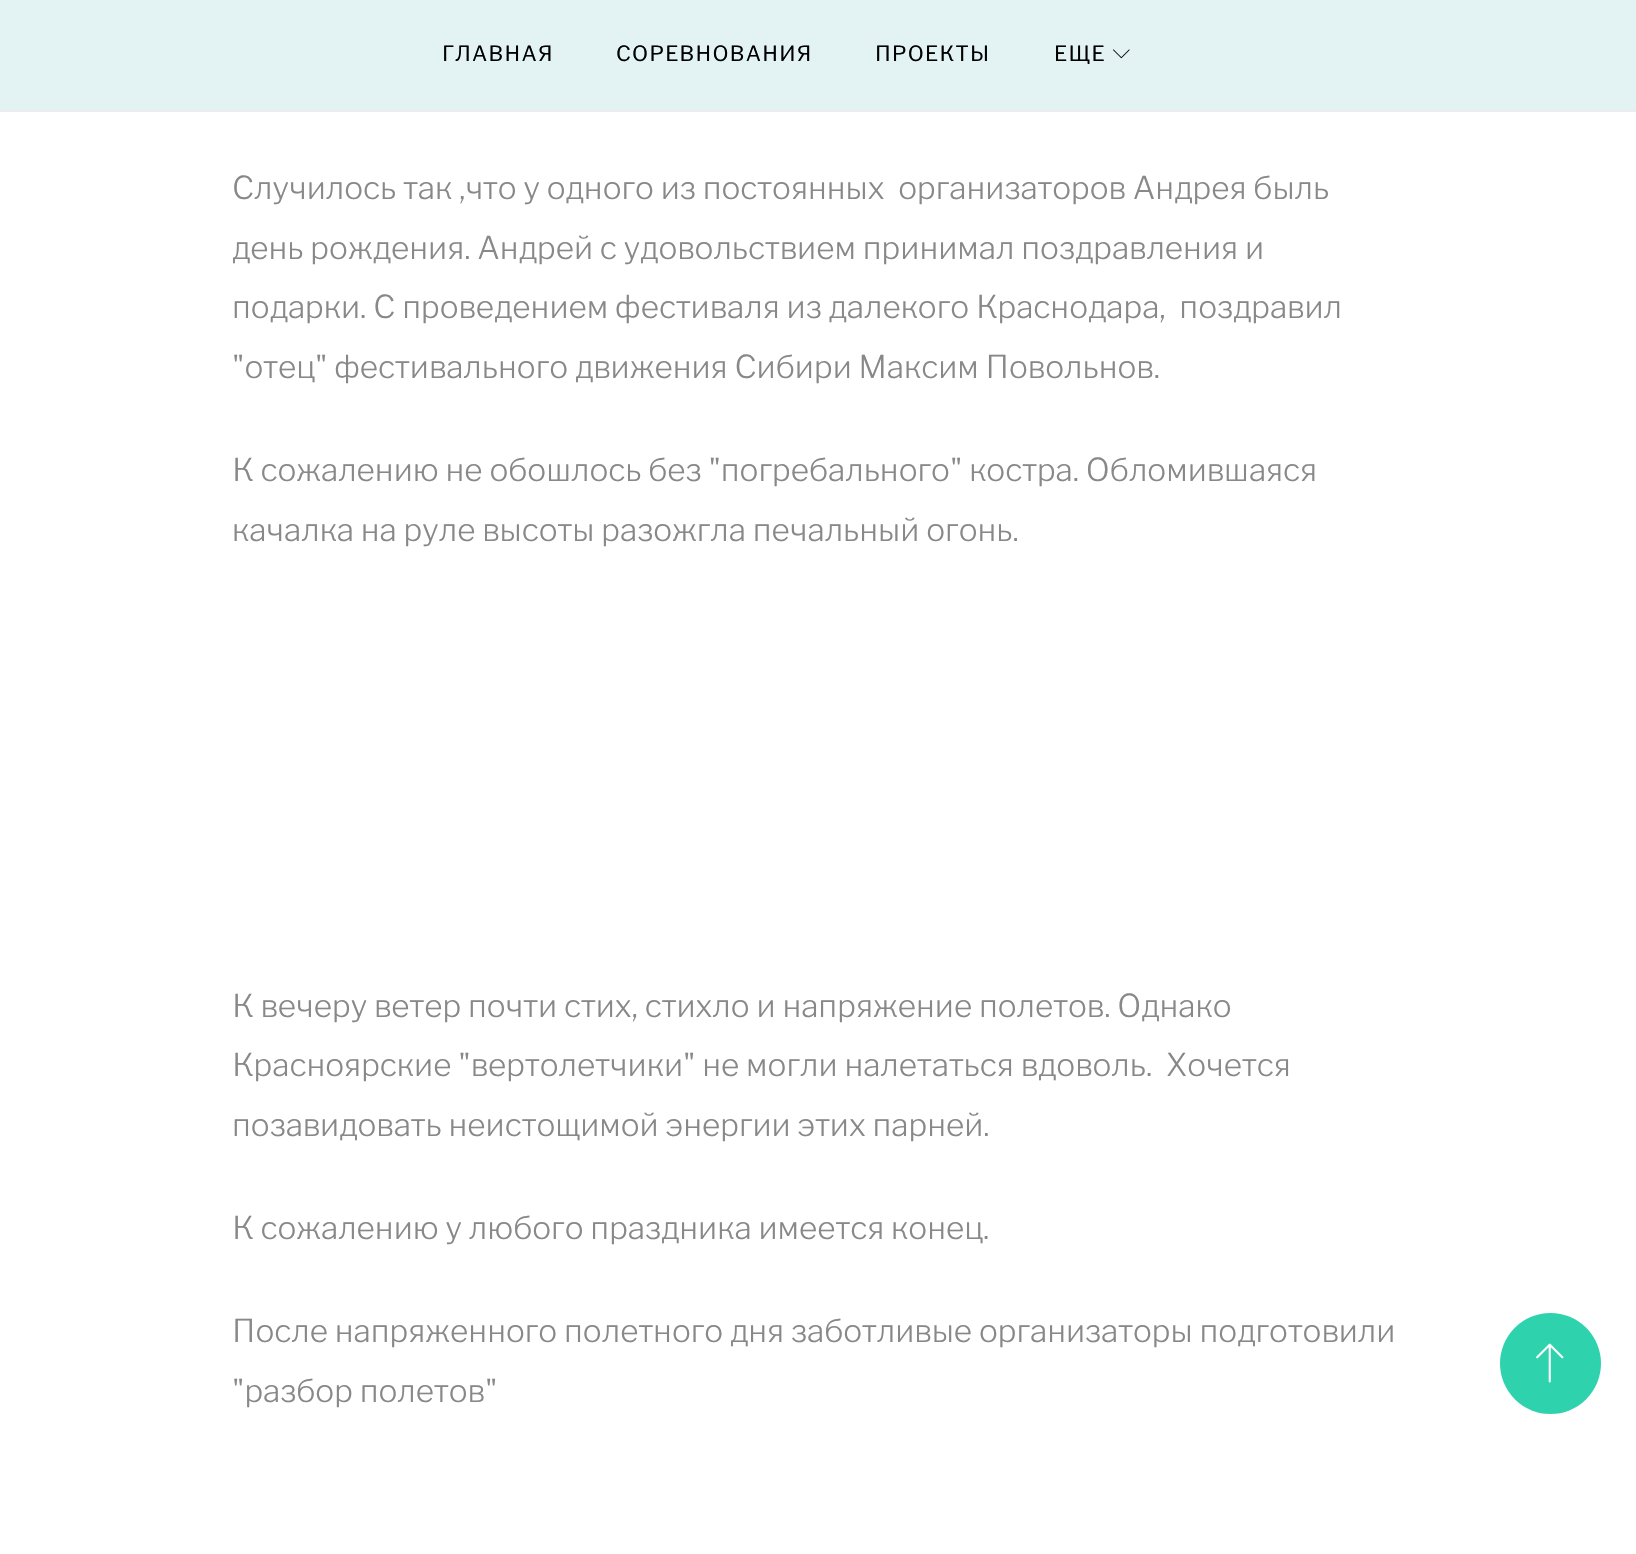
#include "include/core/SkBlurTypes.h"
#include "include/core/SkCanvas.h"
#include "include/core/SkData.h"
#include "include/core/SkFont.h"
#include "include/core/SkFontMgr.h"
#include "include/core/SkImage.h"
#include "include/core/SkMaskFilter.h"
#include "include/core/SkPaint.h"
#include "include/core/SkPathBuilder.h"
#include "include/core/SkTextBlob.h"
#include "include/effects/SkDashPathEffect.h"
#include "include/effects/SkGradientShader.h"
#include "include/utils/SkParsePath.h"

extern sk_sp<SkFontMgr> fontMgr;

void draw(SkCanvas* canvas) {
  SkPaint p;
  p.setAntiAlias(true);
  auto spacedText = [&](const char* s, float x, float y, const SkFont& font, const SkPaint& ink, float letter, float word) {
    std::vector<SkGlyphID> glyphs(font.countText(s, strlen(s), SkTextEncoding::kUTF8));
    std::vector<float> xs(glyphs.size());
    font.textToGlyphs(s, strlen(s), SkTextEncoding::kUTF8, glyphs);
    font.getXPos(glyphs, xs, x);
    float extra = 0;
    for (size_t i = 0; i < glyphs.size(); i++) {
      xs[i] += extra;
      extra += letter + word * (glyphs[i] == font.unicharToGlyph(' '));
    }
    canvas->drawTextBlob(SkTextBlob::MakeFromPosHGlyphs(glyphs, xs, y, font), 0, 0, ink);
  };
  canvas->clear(SK_ColorWHITE);
  p.setColor(SkColorSetRGB(227, 243, 244));
  canvas->drawRect(SkRect::MakeLTRB(0, 0, 1636, 110), p);
  p.setColor(SkColorSetRGB(236, 236, 238));
  canvas->drawRect(SkRect::MakeLTRB(0, 110, 1636, 112), p);
  canvas->drawImageRect(SkImages::DeferredFromEncodedData(SkData::MakeFromFileName("images/1.png")), SkRect::MakeLTRB(1113, 49, 1130, 59), SkSamplingOptions());
  p.setColor(SkColorSetRGB(46, 211, 174));
  canvas->drawCircle(1550.5f, 1363.5f, 50.5f, p);
  canvas->drawImageRect(SkImages::DeferredFromEncodedData(SkData::MakeFromFileName("images/2.png")), SkRect::MakeLTRB(1536, 1343, 1564, 1383), SkSamplingOptions());
  SkFont font1(fontMgr->matchFamilyStyle("Libre Franklin", SkFontStyle::Normal()), 21);
  font1.setSubpixel(true);
  p.setColor(SK_ColorBLACK);
  spacedText("ГЛАВНАЯ", 442, 61, font1, p, 1.25f, 0);
  spacedText("СОРЕВНОВАНИЯ", 616, 61, font1, p, 1.25f, 0);
  spacedText("ПРОЕКТЫ", 875, 61, font1, p, 1.25f, 0);
  spacedText("ЕЩЕ", 1054, 61, font1, p, 1.25f, 0);
  SkFont font2(fontMgr->matchFamilyStyle("Libre Franklin", SkFontStyle(300, SkFontStyle::kNormal_Width, SkFontStyle::kUpright_Slant)), 31.5f);
  font2.setSubpixel(true);
  p.setColor(SkColorSetRGB(136, 136, 136));
  canvas->drawString("Случилось так ,что у одного из постоянных  организаторов Андрея быль", 232, 199, font2, p);
  canvas->drawString("день рождения. Андрей с удовольствием принимал поздравления и", 232, 259, font2, p);
  canvas->drawString("подарки. С проведением фестиваля из далекого Краснодара,  поздравил", 232, 318, font2, p);
  canvas->drawString("\"отец\" фестивального движения Сибири Максим Повольнов.", 232, 378, font2, p);
  canvas->drawString("К сожалению не обошлось без \"погребального\" костра. Обломившаяся", 232, 481, font2, p);
  canvas->drawString("качалка на руле высоты разожгла печальный огонь.", 232, 541, font2, p);
  canvas->drawString("К вечеру ветер почти стих, стихло и напряжение полетов. Однако", 232, 1017, font2, p);
  canvas->drawString("Красноярские \"вертолетчики\" не могли налетаться вдоволь.  Хочется", 232, 1076, font2, p);
  canvas->drawString("позавидовать неистощимой энергии этих парней.", 232, 1136, font2, p);
  canvas->drawString("К сожалению у любого праздника имеется конец.", 232, 1239, font2, p);
  canvas->drawString("После напряженного полетного дня заботливые организаторы подготовили", 232, 1342, font2, p);
  canvas->drawString("\"разбор полетов\"", 232, 1402, font2, p);
}
